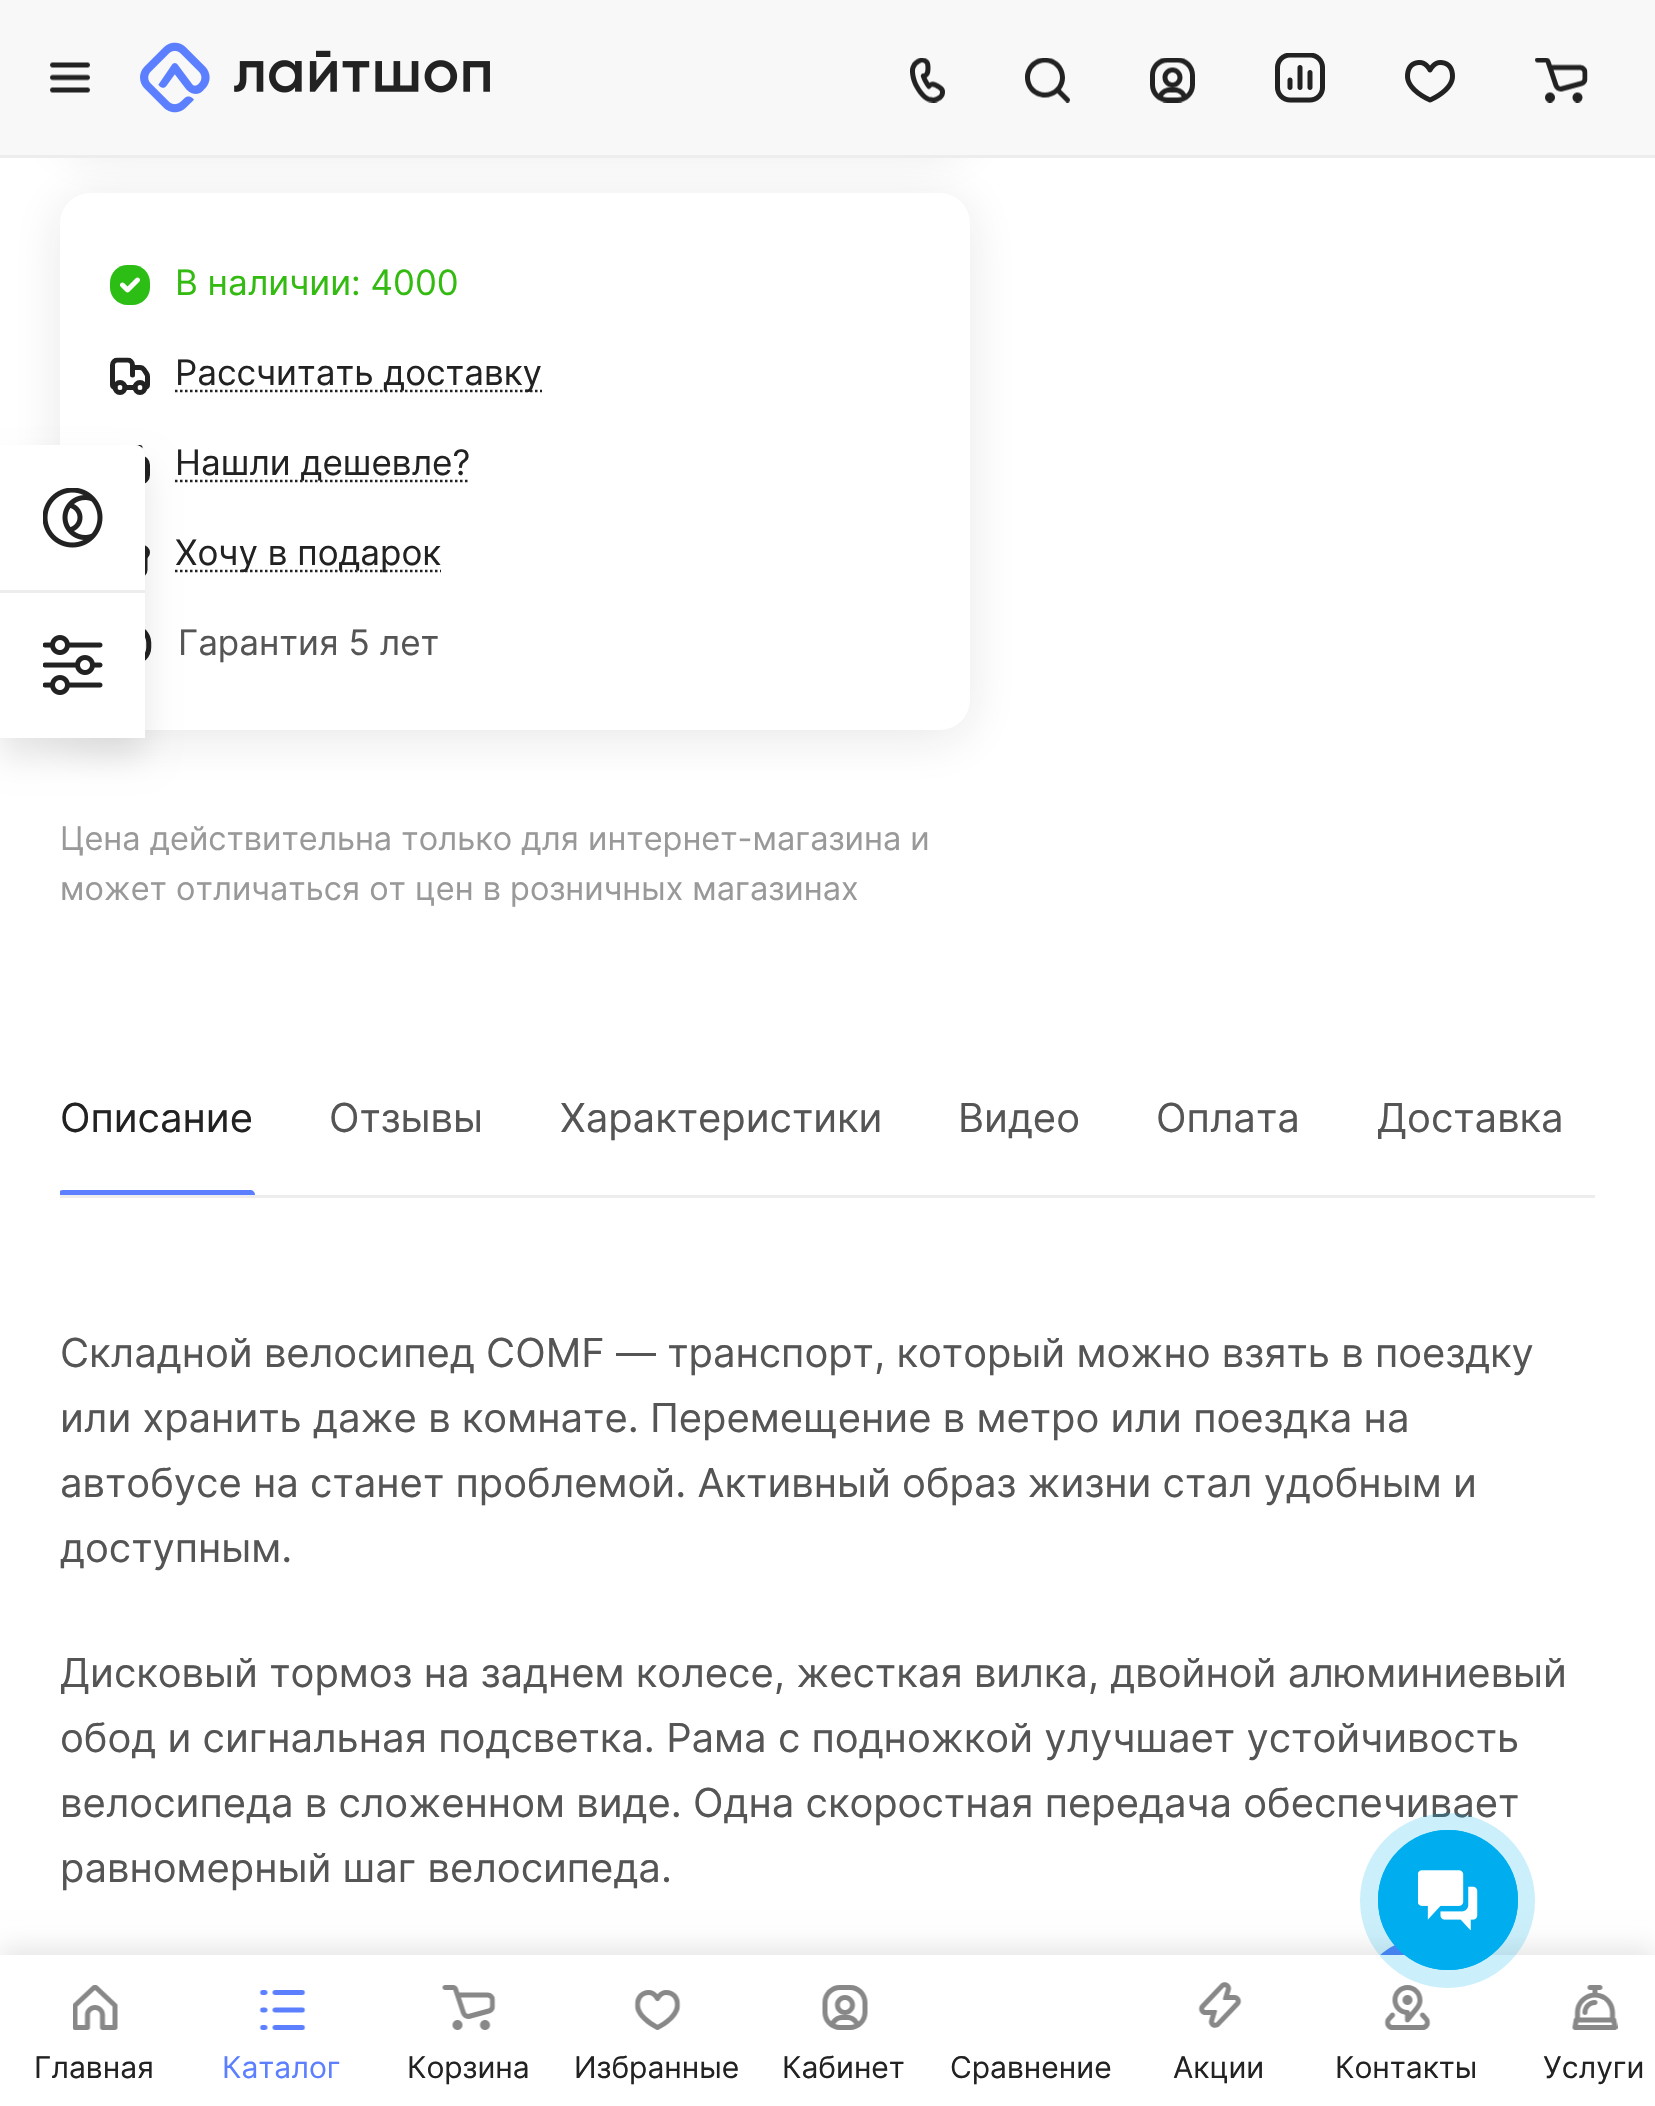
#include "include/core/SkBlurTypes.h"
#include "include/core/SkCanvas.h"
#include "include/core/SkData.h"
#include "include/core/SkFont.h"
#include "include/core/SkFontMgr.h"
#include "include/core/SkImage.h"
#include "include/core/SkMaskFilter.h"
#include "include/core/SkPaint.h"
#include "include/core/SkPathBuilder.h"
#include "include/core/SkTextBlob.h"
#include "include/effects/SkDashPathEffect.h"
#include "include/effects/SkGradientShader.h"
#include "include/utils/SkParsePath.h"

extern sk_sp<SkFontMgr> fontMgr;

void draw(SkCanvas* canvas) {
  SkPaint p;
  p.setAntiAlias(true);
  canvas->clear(SK_ColorWHITE);
  p.setColor(SkColorSetARGB(26, 34, 34, 34));
  p.setMaskFilter(SkMaskFilter::MakeBlur(kNormal_SkBlurStyle, 25));
  canvas->drawRoundRect(SkRect::MakeLTRB(60, -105, 970, 150), 30, 30, p);
  p.setMaskFilter(nullptr);
  p.setMaskFilter(SkMaskFilter::MakeBlur(kNormal_SkBlurStyle, 25));
  canvas->drawRoundRect(SkRect::MakeLTRB(60, 200, 970, 738), 30, 30, p);
  p.setMaskFilter(nullptr);
  p.setColor(SkColorSetRGB(237, 237, 237));
  canvas->drawRect(SkRect::MakeLTRB(0, 155, 1655, 158), p);
  p.setColor(SkColorSetRGB(248, 248, 248));
  canvas->drawRect(SkRect::MakeLTRB(0, 0, 1655, 155), p);
  canvas->drawImageRect(SkImages::DeferredFromEncodedData(SkData::MakeFromFileName("images/1.png")), SkRect::MakeLTRB(50, 62, 90, 93), SkSamplingOptions());
  canvas->drawImageRect(SkImages::DeferredFromEncodedData(SkData::MakeFromFileName("images/2.png")), SkRect::MakeLTRB(140, 42, 490, 113), SkSamplingOptions());
  canvas->drawImageRect(SkImages::DeferredFromEncodedData(SkData::MakeFromFileName("images/3.png")), SkRect::MakeLTRB(910, 58, 945, 103), SkSamplingOptions());
  canvas->drawImageRect(SkImages::DeferredFromEncodedData(SkData::MakeFromFileName("images/4.png")), SkRect::MakeLTRB(1025, 58, 1070, 103), SkSamplingOptions());
  canvas->drawImageRect(SkImages::DeferredFromEncodedData(SkData::MakeFromFileName("images/5.png")), SkRect::MakeLTRB(1150, 58, 1195, 103), SkSamplingOptions());
  canvas->drawImageRect(SkImages::DeferredFromEncodedData(SkData::MakeFromFileName("images/6.png")), SkRect::MakeLTRB(1275, 53, 1325, 103), SkSamplingOptions());
  canvas->drawImageRect(SkImages::DeferredFromEncodedData(SkData::MakeFromFileName("images/7.png")), SkRect::MakeLTRB(1405, 60, 1455, 103), SkSamplingOptions());
  canvas->drawImageRect(SkImages::DeferredFromEncodedData(SkData::MakeFromFileName("images/8.png")), SkRect::MakeLTRB(1535, 58, 1588, 103), SkSamplingOptions());
  p.setColor(SK_ColorWHITE);
  canvas->drawRoundRect(SkRect::MakeLTRB(60, 193, 970, 730), 30, 30, p);
  canvas->drawImageRect(SkImages::DeferredFromEncodedData(SkData::MakeFromFileName("images/9.png")), SkRect::MakeLTRB(110, 265, 150, 305), SkSamplingOptions());
  canvas->drawImageRect(SkImages::DeferredFromEncodedData(SkData::MakeFromFileName("images/10.png")), SkRect::MakeLTRB(110, 357, 150, 395), SkSamplingOptions());
  p.setStyle(SkPaint::kStroke_Style);
  p.setStrokeWidth(2.5f);
  p.setColor(SkColorSetRGB(34, 34, 34));
  p.setPathEffect(SkDashPathEffect::Make({{2.5f, 2.5f}}, 0));
  canvas->drawPath(SkPathBuilder().moveTo(175, 391).lineTo(542, 391).detach(), p);
  p.setPathEffect(nullptr);
  canvas->drawImageRect(SkImages::DeferredFromEncodedData(SkData::MakeFromFileName("images/11.png")), SkRect::MakeLTRB(135, 445, 150, 484), SkSamplingOptions());
  p.setPathEffect(SkDashPathEffect::Make({{2.5f, 2.5f}}, 0));
  canvas->drawPath(SkPathBuilder().moveTo(175, 481).lineTo(470, 481).detach(), p);
  p.setPathEffect(nullptr);
  canvas->drawImageRect(SkImages::DeferredFromEncodedData(SkData::MakeFromFileName("images/12.png")), SkRect::MakeLTRB(145, 545, 150, 576), SkSamplingOptions());
  p.setPathEffect(SkDashPathEffect::Make({{2.5f, 2.5f}}, 0));
  canvas->drawPath(SkPathBuilder().moveTo(175, 571).lineTo(441, 571).detach(), p);
  p.setPathEffect(nullptr);
  canvas->drawImageRect(SkImages::DeferredFromEncodedData(SkData::MakeFromFileName("images/13.png")), SkRect::MakeLTRB(145, 629, 152, 661), SkSamplingOptions());
  p.setStyle(SkPaint::kFill_Style);
  p.setColor(SkColorSetRGB(237, 237, 237));
  canvas->drawRect(SkRect::MakeLTRB(60, 1195, 1595, 1198), p);
  canvas->save();
  canvas->clipRect(SkRect::MakeLTRB(60, 1043, 1595, 1195));
  p.setColor(SkColorSetRGB(91, 127, 255));
  canvas->drawPath(SkPathBuilder().moveTo(63, 1190).lineTo(250, 1190).cubicTo(253, 1190, 255, 1192, 255, 1195).lineTo(58, 1195).cubicTo(58, 1192, 60, 1190, 63, 1190).close().detach(), p);
  canvas->restore();
  p.setColor(SkColorSetARGB(26, 0, 0, 0));
  p.setMaskFilter(SkMaskFilter::MakeBlur(kNormal_SkBlurStyle, 16));
  canvas->drawRoundRect(SkRect::MakeLTRB(0, 465, 145, 758), 10, 10, p);
  p.setMaskFilter(nullptr);
  p.setColor(SkColorSetRGB(237, 237, 237));
  canvas->drawPath(SkPathBuilder().moveTo(0, 445).lineTo(135, 445).cubicTo(140.5f, 445, 145, 449.5f, 145, 455).lineTo(145, 728).cubicTo(145, 733.5f, 140.5f, 738, 135, 738).lineTo(0, 738).close().detach(), p);
  p.setColor(SK_ColorWHITE);
  canvas->drawPath(SkPathBuilder().moveTo(0, 445).lineTo(135, 445).cubicTo(140.5f, 445, 145, 449.5f, 145, 455).lineTo(145, 590).lineTo(0, 590).close().detach(), p);
  canvas->drawImageRect(SkImages::DeferredFromEncodedData(SkData::MakeFromFileName("images/14.png")), SkRect::MakeLTRB(43, 488, 103, 548), SkSamplingOptions());
  canvas->drawRect(SkRect::MakeLTRB(0, 593, 145, 738), p);
  canvas->drawImageRect(SkImages::DeferredFromEncodedData(SkData::MakeFromFileName("images/15.png")), SkRect::MakeLTRB(43, 635, 103, 695), SkSamplingOptions());
  p.setColor(SkColorSetRGB(91, 127, 255));
  canvas->drawCircle(1418, 1995, 55, p);
  p.setColor(SkColorSetARGB(26, 0, 0, 0));
  p.setMaskFilter(SkMaskFilter::MakeBlur(kNormal_SkBlurStyle, 12.5f));
  canvas->drawRect(SkRect::MakeLTRB(0, 1948, 1655, 2100), p);
  p.setMaskFilter(nullptr);
  p.setColor(SK_ColorWHITE);
  canvas->drawRect(SkRect::MakeLTRB(0, 1955, 1655, 2106), p);
  canvas->drawImageRect(SkImages::DeferredFromEncodedData(SkData::MakeFromFileName("images/17.png")), SkRect::MakeLTRB(73, 1985, 118, 2030), SkSamplingOptions());
  canvas->drawImageRect(SkImages::DeferredFromEncodedData(SkData::MakeFromFileName("images/18.png")), SkRect::MakeLTRB(259, 1990, 306, 2030), SkSamplingOptions());
  canvas->drawImageRect(SkImages::DeferredFromEncodedData(SkData::MakeFromFileName("images/19.png")), SkRect::MakeLTRB(442, 1985, 496, 2030), SkSamplingOptions());
  canvas->drawImageRect(SkImages::DeferredFromEncodedData(SkData::MakeFromFileName("images/20.png")), SkRect::MakeLTRB(634, 1990, 681, 2030), SkSamplingOptions());
  canvas->drawImageRect(SkImages::DeferredFromEncodedData(SkData::MakeFromFileName("images/21.png")), SkRect::MakeLTRB(822, 1985, 868, 2030), SkSamplingOptions());
  canvas->drawImageRect(SkImages::DeferredFromEncodedData(SkData::MakeFromFileName("images/22.png")), SkRect::MakeLTRB(1198, 1982, 1242, 2028), SkSamplingOptions());
  canvas->drawImageRect(SkImages::DeferredFromEncodedData(SkData::MakeFromFileName("images/23.png")), SkRect::MakeLTRB(1384, 1985, 1431, 2030), SkSamplingOptions());
  canvas->drawImageRect(SkImages::DeferredFromEncodedData(SkData::MakeFromFileName("images/24.png")), SkRect::MakeLTRB(1572, 1985, 1618, 2030), SkSamplingOptions());
  SkFont font1(fontMgr->matchFamilyStyle("Inter", SkFontStyle::Normal()), 35);
  font1.setSubpixel(true);
  p.setColor(SkColorSetRGB(51, 187, 17));
  canvas->drawString("В наличии: 4000", 175, 295, font1, p);
  p.setColor(SkColorSetRGB(34, 34, 34));
  canvas->drawString("Рассчитать доставку", 175, 385, font1, p);
  canvas->drawString("Нашли дешевле?", 175, 475, font1, p);
  canvas->drawString("Хочу в подарок", 175, 565, font1, p);
  p.setColor(SkColorSetRGB(85, 85, 85));
  canvas->drawString("Гарантия 5 лет", 178, 655, font1, p);
  SkFont font2(fontMgr->matchFamilyStyle("Inter", SkFontStyle::Normal()), 32.5f);
  font2.setSubpixel(true);
  p.setColor(SkColorSetRGB(153, 153, 153));
  canvas->drawString("Цена действительна только для интернет-магазина и", 60, 850, font2, p);
  canvas->drawString("может отличаться от цен в розничных магазинах", 60, 900, font2, p);
  SkFont font3(fontMgr->matchFamilyStyle("Inter", SkFontStyle::Normal()), 40);
  font3.setSubpixel(true);
  p.setColor(SkColorSetRGB(34, 34, 34));
  canvas->drawString("Описание", 60, 1132, font3, p);
  p.setColor(SkColorSetRGB(85, 85, 85));
  canvas->drawString("Отзывы", 329, 1132, font3, p);
  canvas->drawString("Характеристики", 560, 1132, font3, p);
  canvas->drawString("Видео", 958, 1132, font3, p);
  canvas->drawString("Оплата", 1156, 1132, font3, p);
  canvas->drawString("Доставка", 1377, 1132, font3, p);
  canvas->drawString("Складной велосипед COMF — транспорт, который можно взять в поездку", 60, 1367, font3, p);
  canvas->drawString("или хранить даже в комнате. Перемещение в метро или поездка на", 60, 1432, font3, p);
  canvas->drawString("автобусе на станет проблемой. Активный образ жизни стал удобным и", 60, 1497, font3, p);
  canvas->drawString("доступным.", 60, 1562, font3, p);
  canvas->drawString("Дисковый тормоз на заднем колесе, жесткая вилка, двойной алюминиевый", 60, 1687, font3, p);
  canvas->drawString("обод и сигнальная подсветка. Рама с подножкой улучшает устойчивость", 60, 1752, font3, p);
  canvas->drawString("велосипеда в сложенном виде. Одна скоростная передача обеспечивает", 60, 1817, font3, p);
  canvas->drawString("равномерный шаг велосипеда.", 60, 1882, font3, p);
  p.setColor(SkColorSetARGB(51, 0, 174, 239));
  canvas->drawCircle(1447.5f, 1900.5f, 87.5f, p);
  p.setStyle(SkPaint::kStroke_Style);
  p.setStrokeWidth(2);
  p.setColor(SkColorSetRGB(0, 174, 239));
  canvas->drawCircle(1448, 1900, 69, p);
  p.setStyle(SkPaint::kFill_Style);
  canvas->drawCircle(1448, 1900, 70, p);
  canvas->drawImageRect(SkImages::DeferredFromEncodedData(SkData::MakeFromFileName("images/16.png")), SkRect::MakeLTRB(1418, 1870, 1478, 1930), SkSamplingOptions());
  SkFont font4(fontMgr->matchFamilyStyle("Inter", SkFontStyle::Normal()), 30);
  font4.setSubpixel(true);
  p.setColor(SkColorSetRGB(34, 34, 34));
  canvas->drawString("Главная", 34, 2078, font4, p);
  p.setColor(SkColorSetRGB(91, 127, 255));
  canvas->drawString("Каталог", 222, 2078, font4, p);
  p.setColor(SkColorSetRGB(34, 34, 34));
  canvas->drawString("Корзина", 407, 2078, font4, p);
  canvas->drawString("Избранные", 574, 2078, font4, p);
  canvas->drawString("Кабинет", 782, 2078, font4, p);
  canvas->drawString("Сравнение", 950, 2078, font4, p);
  canvas->drawString("Акции", 1173, 2078, font4, p);
  canvas->drawString("Контакты", 1335, 2078, font4, p);
  canvas->drawString("Услуги", 1543, 2078, font4, p);
}
